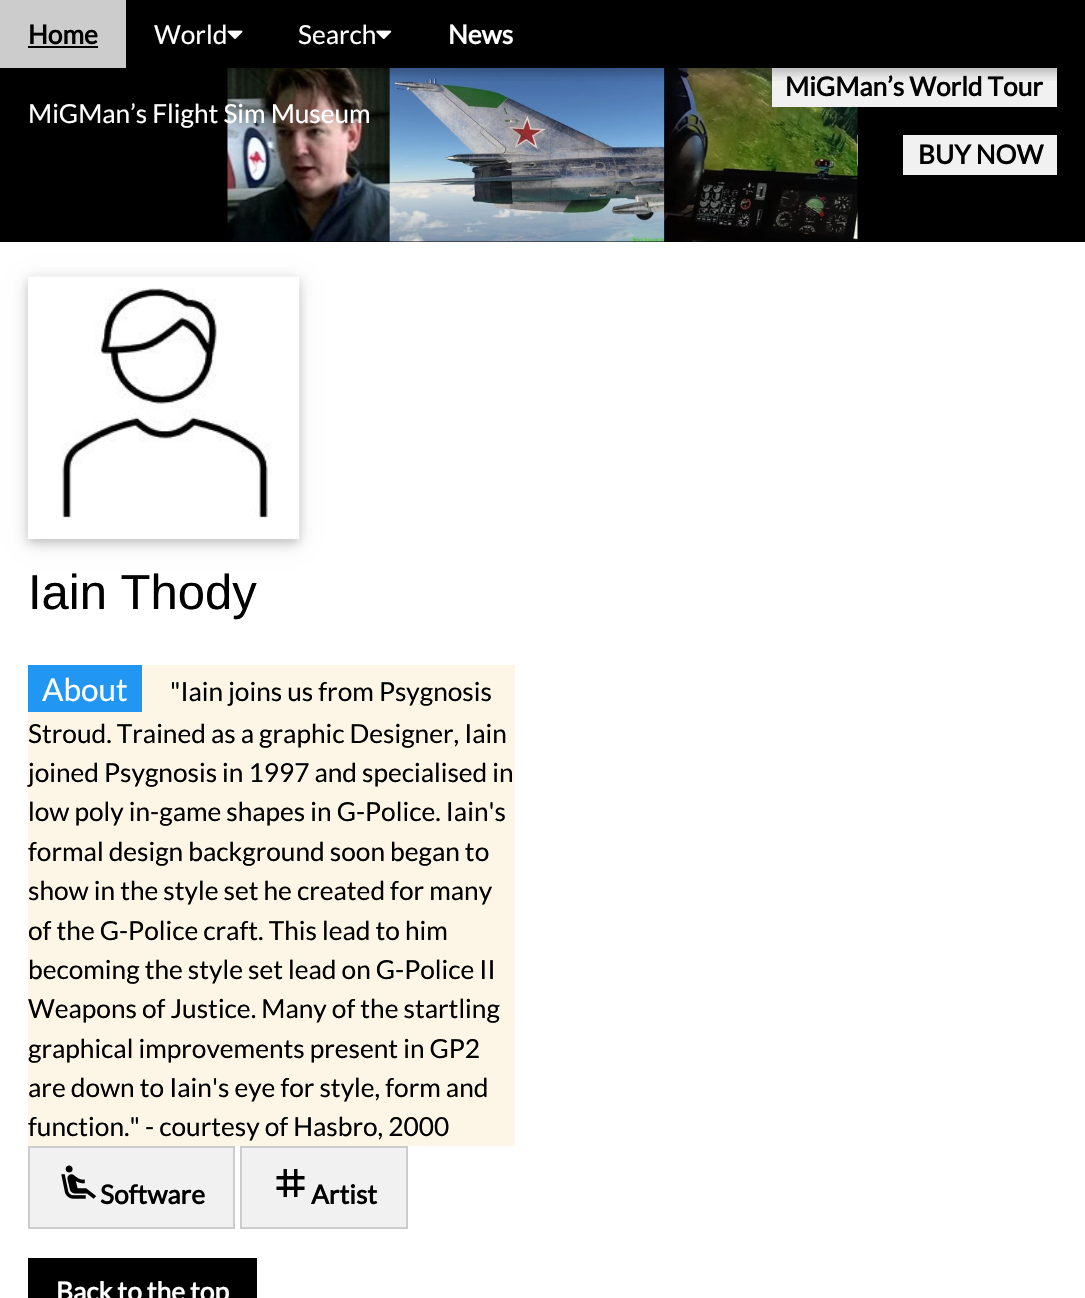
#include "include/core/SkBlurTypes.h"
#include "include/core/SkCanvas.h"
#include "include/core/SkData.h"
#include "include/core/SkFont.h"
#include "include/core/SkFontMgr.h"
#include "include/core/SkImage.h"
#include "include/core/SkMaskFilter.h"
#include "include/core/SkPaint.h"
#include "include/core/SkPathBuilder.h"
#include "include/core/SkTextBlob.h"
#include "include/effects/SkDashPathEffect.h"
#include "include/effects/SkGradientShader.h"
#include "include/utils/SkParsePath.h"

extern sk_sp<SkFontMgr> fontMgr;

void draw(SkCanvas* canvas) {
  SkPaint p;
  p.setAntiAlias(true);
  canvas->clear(SK_ColorWHITE);
  p.setColor(SK_ColorBLACK);
  canvas->drawRect(SkRect::MakeLTRB(126, 0, 1085, 68), p);
  canvas->drawRect(SkRect::MakeLTRB(0, 68, 1085, 242), p);
  p.setColor(SkColorSetRGB(220, 220, 220));
  canvas->drawRect(SkRect::MakeLTRB(857, 135, 858, 166), p);
  canvas->drawImageRect(SkImages::DeferredFromEncodedData(SkData::MakeFromFileName("images/3.png")), SkRect::MakeLTRB(227, 68, 858, 242), SkSamplingOptions());
  p.setColor(SkColorSetRGB(241, 241, 241));
  canvas->drawRect(SkRect::MakeLTRB(772, 68, 1057, 107), p);
  canvas->save();
  canvas->clipRect(SkRect::MakeLTRB(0, 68, 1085, 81));
  p.setColor(SkColorSetARGB(31, 0, 0, 0));
  p.setMaskFilter(SkMaskFilter::MakeBlur(kNormal_SkBlurStyle, 9));
  canvas->drawRect(SkRect::MakeLTRB(0, 4, 1085, 72), p);
  p.setMaskFilter(nullptr);
  canvas->restore();
  canvas->save();
  canvas->clipRect(SkRect::MakeLTRB(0, 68, 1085, 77));
  p.setColor(SkColorSetARGB(41, 0, 0, 0));
  p.setMaskFilter(SkMaskFilter::MakeBlur(kNormal_SkBlurStyle, 4.5f));
  canvas->drawRect(SkRect::MakeLTRB(0, 4, 1085, 72), p);
  p.setMaskFilter(nullptr);
  canvas->restore();
  p.setColor(SkColorSetRGB(204, 204, 204));
  canvas->drawRect(SkRect::MakeLTRB(0, 0, 126, 68), p);
  p.setColor(SK_ColorBLACK);
  canvas->drawRect(SkRect::MakeLTRB(28, 46, 98, 48), p);
  canvas->drawImageRect(SkImages::DeferredFromEncodedData(SkData::MakeFromFileName("images/1.png")), SkRect::MakeLTRB(227, 30, 243, 39), SkSamplingOptions());
  canvas->drawImageRect(SkImages::DeferredFromEncodedData(SkData::MakeFromFileName("images/2.png")), SkRect::MakeLTRB(376, 30, 392, 39), SkSamplingOptions());
  p.setColor(SkColorSetRGB(241, 241, 241));
  canvas->drawRect(SkRect::MakeLTRB(903, 135, 1057, 175), p);
  canvas->save();
  canvas->clipPath(SkPathBuilder(SkPathFillType::kEvenOdd).moveTo(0, 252).lineTo(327, 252).lineTo(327, 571).lineTo(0, 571).close().moveTo(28, 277).lineTo(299, 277).lineTo(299, 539).lineTo(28, 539).close().detach(), true);
  p.setColor(SkColorSetARGB(31, 0, 0, 0));
  p.setMaskFilter(SkMaskFilter::MakeBlur(kNormal_SkBlurStyle, 9));
  canvas->drawRect(SkRect::MakeLTRB(28, 280, 299, 543), p);
  p.setMaskFilter(nullptr);
  canvas->restore();
  canvas->save();
  canvas->clipPath(SkPathBuilder(SkPathFillType::kEvenOdd).moveTo(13, 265).lineTo(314, 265).lineTo(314, 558).lineTo(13, 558).close().moveTo(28, 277).lineTo(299, 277).lineTo(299, 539).lineTo(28, 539).close().detach(), true);
  p.setColor(SkColorSetARGB(41, 0, 0, 0));
  p.setMaskFilter(SkMaskFilter::MakeBlur(kNormal_SkBlurStyle, 4.5f));
  canvas->drawRect(SkRect::MakeLTRB(28, 280, 299, 543), p);
  p.setMaskFilter(nullptr);
  canvas->restore();
  canvas->drawImageRect(SkImages::DeferredFromEncodedData(SkData::MakeFromFileName("images/4.png")), SkRect::MakeLTRB(34, 276, 300, 539), SkSamplingOptions());
  p.setColor(SkColorSetRGB(253, 245, 230));
  canvas->drawRect(SkRect::MakeLTRB(28, 665, 515, 1146), p);
  p.setColor(SkColorSetRGB(33, 150, 243));
  canvas->drawRect(SkRect::MakeLTRB(28, 665, 142, 712), p);
  p.setColor(SkColorSetRGB(241, 241, 241));
  canvas->drawRect(SkRect::MakeLTRB(29, 1147, 234, 1228), p);
  p.setStyle(SkPaint::kStroke_Style);
  p.setStrokeWidth(2);
  p.setColor(SkColorSetRGB(204, 204, 204));
  canvas->drawRect(SkRect::MakeLTRB(29, 1147, 234, 1228), p);
  canvas->drawImageRect(SkImages::DeferredFromEncodedData(SkData::MakeFromFileName("images/5.png")), SkRect::MakeLTRB(61, 1165, 97, 1199), SkSamplingOptions());
  p.setStyle(SkPaint::kFill_Style);
  p.setColor(SkColorSetRGB(241, 241, 241));
  canvas->drawRect(SkRect::MakeLTRB(241, 1147, 407, 1228), p);
  p.setStyle(SkPaint::kStroke_Style);
  p.setColor(SkColorSetRGB(204, 204, 204));
  canvas->drawRect(SkRect::MakeLTRB(241, 1147, 407, 1228), p);
  canvas->drawImageRect(SkImages::DeferredFromEncodedData(SkData::MakeFromFileName("images/6.png")), SkRect::MakeLTRB(276, 1168, 305, 1198), SkSamplingOptions());
  p.setStyle(SkPaint::kFill_Style);
  p.setColor(SK_ColorBLACK);
  canvas->drawRect(SkRect::MakeLTRB(28, 1258, 257, 1298), p);
  SkFont font1(fontMgr->matchFamilyStyle("Lato", SkFontStyle::Bold()), 26.25f);
  font1.setSubpixel(true);
  canvas->drawString("Home", 28, 44, font1, p);
  SkFont font2(fontMgr->matchFamilyStyle("Lato", SkFontStyle::Normal()), 26.25f);
  font2.setSubpixel(true);
  p.setColor(SK_ColorWHITE);
  canvas->drawString("World", 154, 44, font2, p);
  canvas->drawString("Search", 298, 44, font2, p);
  canvas->drawString("News", 448, 44, font1, p);
  p.setColor(SK_ColorBLACK);
  canvas->drawString("MiGMan’s World Tour", 785, 96, font1, p);
  p.setColor(SK_ColorWHITE);
  canvas->drawString("MiGMan’s Flight Sim Museum", 28, 123, font2, p);
  p.setColor(SK_ColorBLACK);
  canvas->drawString("BUY NOW", 918, 164, font1, p);
  SkFont font3(fontMgr->matchFamilyStyle("Liberation Sans", SkFontStyle::Normal()), 49);
  font3.setSubpixel(true);
  canvas->drawString("Iain Thody", 28, 609, font3, p);
  SkFont font4(fontMgr->matchFamilyStyle("Lato", SkFontStyle::Normal()), 31.5f);
  font4.setSubpixel(true);
  p.setColor(SK_ColorWHITE);
  canvas->drawString("About", 42, 701, font4, p);
  p.setColor(SK_ColorBLACK);
  canvas->drawString("\"Iain joins us from Psygnosis", 170, 701, font2, p);
  canvas->drawString("Stroud. Trained as a graphic Designer, Iain", 28, 743, font2, p);
  canvas->drawString("joined Psygnosis in 1997 and specialised in", 28, 782, font2, p);
  canvas->drawString("low poly in-game shapes in G-Police. Iain's", 28, 821, font2, p);
  canvas->drawString("formal design background soon began to", 28, 861, font2, p);
  canvas->drawString("show in the style set he created for many", 28, 900, font2, p);
  canvas->drawString("of the G-Police craft. This lead to him", 28, 940, font2, p);
  canvas->drawString("becoming the style set lead on G-Police II", 28, 979, font2, p);
  canvas->drawString("Weapons of Justice. Many of the startling", 28, 1018, font2, p);
  canvas->drawString("graphical improvements present in GP2", 28, 1058, font2, p);
  canvas->drawString("are down to Iain's eye for style, form and", 28, 1097, font2, p);
  canvas->drawString("function.\" - courtesy of Hasbro, 2000", 28, 1136, font2, p);
  canvas->drawString("Software", 100, 1204, font1, p);
  canvas->drawString("Artist", 311, 1204, font1, p);
  p.setColor(SK_ColorWHITE);
  canvas->drawString("Back to the top", 56, 1301, font1, p);
}
